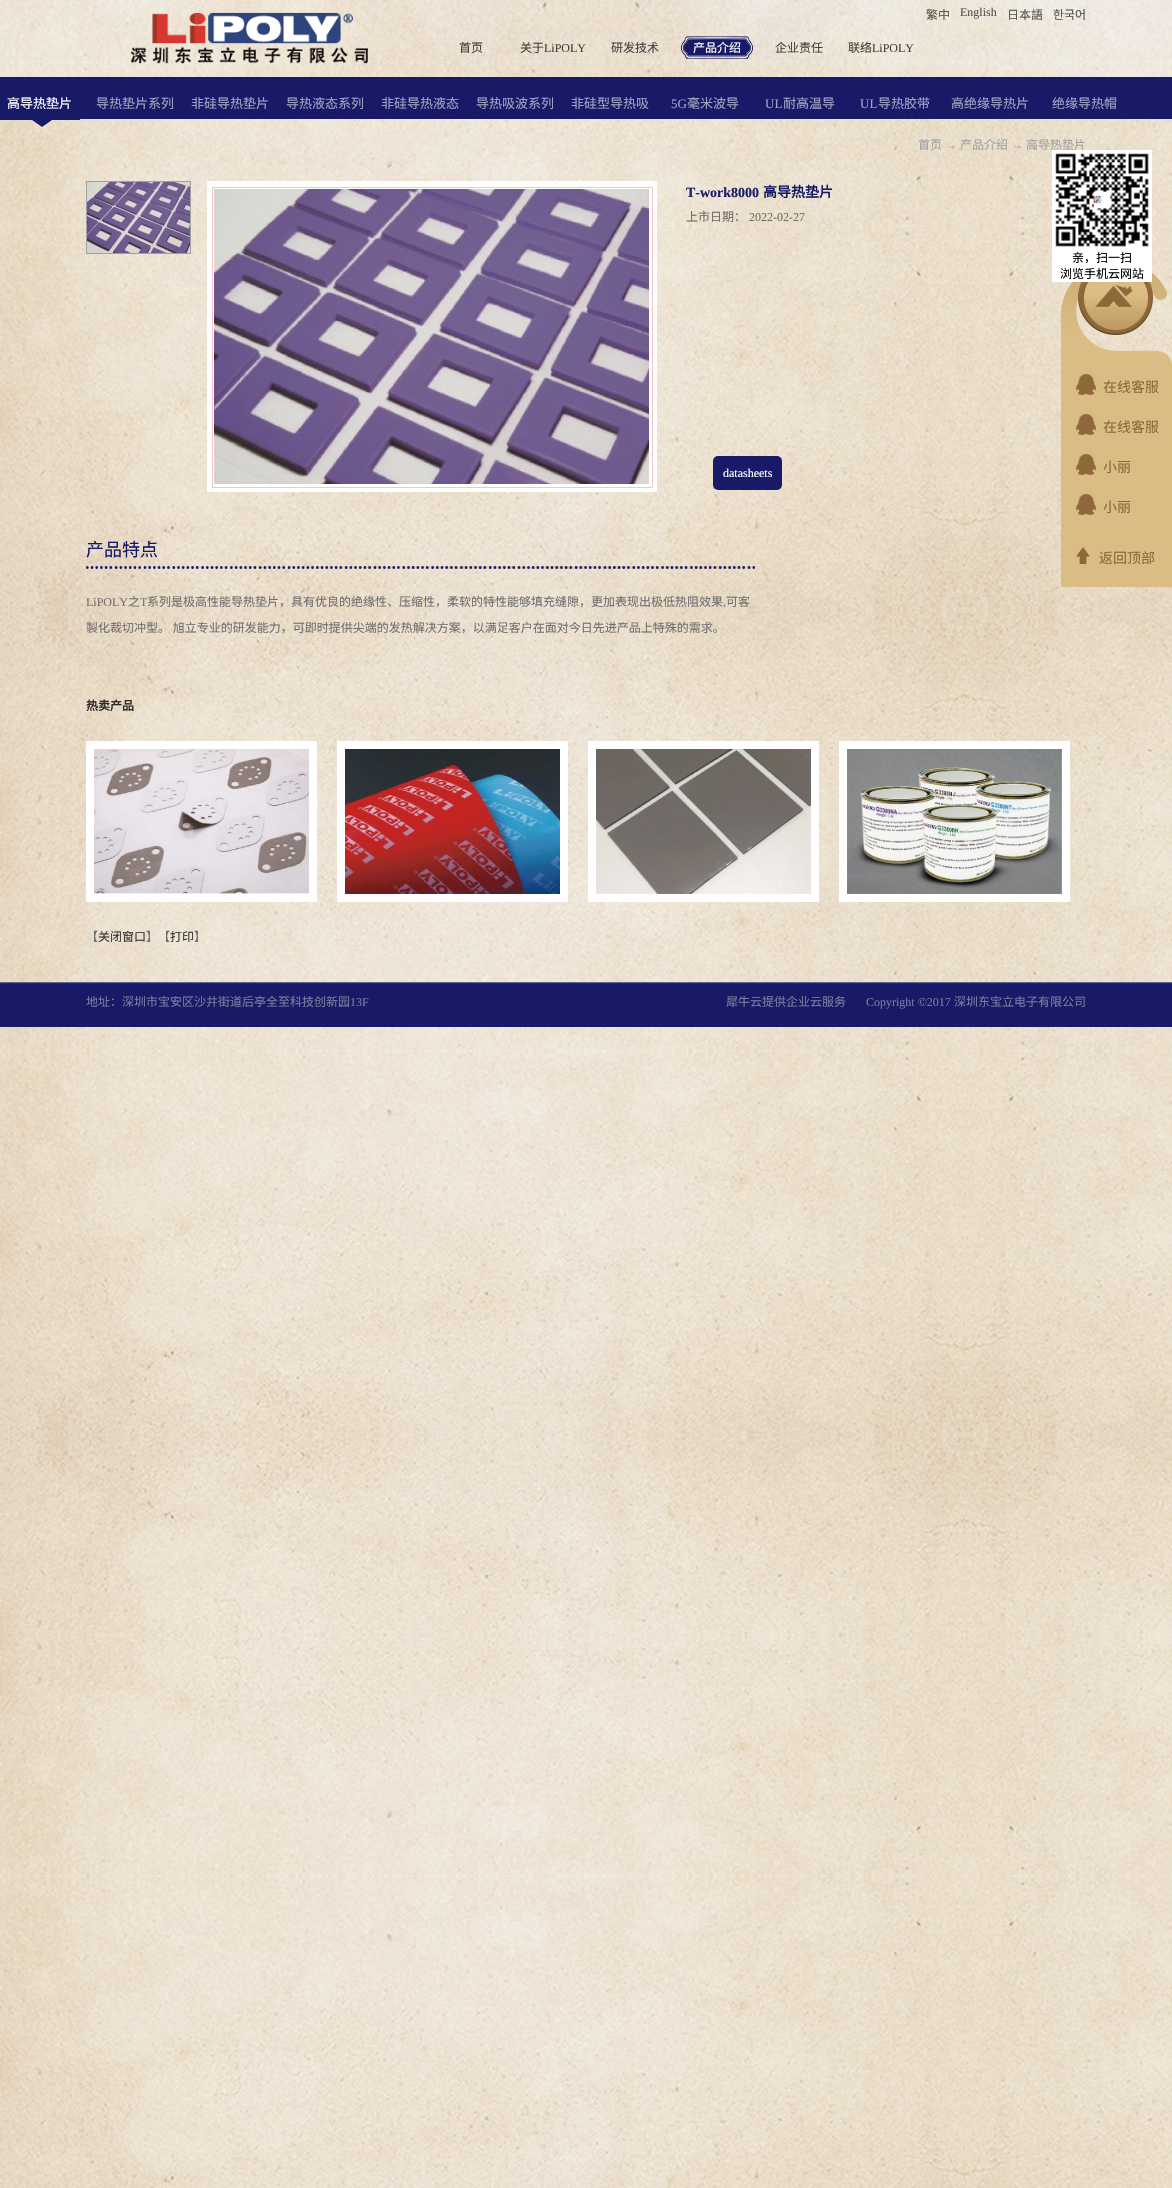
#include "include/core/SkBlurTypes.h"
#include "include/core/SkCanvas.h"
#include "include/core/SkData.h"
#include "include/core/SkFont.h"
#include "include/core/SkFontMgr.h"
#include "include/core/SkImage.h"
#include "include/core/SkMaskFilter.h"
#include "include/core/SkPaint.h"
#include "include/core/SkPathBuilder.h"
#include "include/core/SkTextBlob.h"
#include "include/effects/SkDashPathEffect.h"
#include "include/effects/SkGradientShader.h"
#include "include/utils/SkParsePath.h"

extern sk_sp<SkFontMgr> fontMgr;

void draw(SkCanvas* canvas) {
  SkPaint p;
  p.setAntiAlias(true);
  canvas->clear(SK_ColorWHITE);
  canvas->drawImageRect(SkImages::DeferredFromEncodedData(SkData::MakeFromFileName("images/1.png")), SkRect::MakeLTRB(0, 119, 1172, 2188), SkSamplingOptions());
  canvas->drawImageRect(SkImages::DeferredFromEncodedData(SkData::MakeFromFileName("images/2.png")), SkRect::MakeLTRB(0, 0, 1172, 77), SkSamplingOptions());
  canvas->drawImageRect(SkImages::DeferredFromEncodedData(SkData::MakeFromFileName("images/3.png")), SkRect::MakeLTRB(130, 12, 368, 64), SkSamplingOptions());
  canvas->drawImageRect(SkImages::DeferredFromEncodedData(SkData::MakeFromFileName("images/4.png")), SkRect::MakeLTRB(681, 36, 753, 59), SkSamplingOptions());
  p.setColor(SkColorSetRGB(24, 26, 103));
  canvas->drawRect(SkRect::MakeLTRB(0, 77, 1172, 119), p);
  canvas->drawImageRect(SkImages::DeferredFromEncodedData(SkData::MakeFromFileName("images/5.png")), SkRect::MakeLTRB(0, 119, 80, 127), SkSamplingOptions());
  p.setStyle(SkPaint::kStroke_Style);
  p.setStrokeWidth(1);
  p.setColor(SkColorSetRGB(159, 160, 160));
  canvas->drawRect(SkRect::MakeLTRB(86.5f, 181.5f, 190.5f, 253.5f), p);
  canvas->drawImageRect(SkImages::DeferredFromEncodedData(SkData::MakeFromFileName("images/6.png")), SkRect::MakeLTRB(87, 182, 190, 253), SkSamplingOptions());
  canvas->drawImageRect(SkImages::DeferredFromEncodedData(SkData::MakeFromFileName("images/7.png")), SkRect::MakeLTRB(207, 181, 657, 492), SkSamplingOptions());
  canvas->drawImageRect(SkImages::DeferredFromEncodedData(SkData::MakeFromFileName("images/8.png")), SkRect::MakeLTRB(214, 189, 649, 484), SkSamplingOptions());
  p.setStyle(SkPaint::kFill_Style);
  p.setColor(SkColorSetRGB(24, 26, 103));
  canvas->drawRoundRect(SkRect::MakeLTRB(713, 456, 782, 490), 5, 5, p);
  canvas->drawImageRect(SkImages::DeferredFromEncodedData(SkData::MakeFromFileName("images/9.png")), SkRect::MakeLTRB(86, 566, 755, 569), SkSamplingOptions());
  p.setColor(SK_ColorWHITE);
  canvas->drawRect(SkRect::MakeLTRB(86, 741, 317, 902), p);
  canvas->drawImageRect(SkImages::DeferredFromEncodedData(SkData::MakeFromFileName("images/10.png")), SkRect::MakeLTRB(94, 749, 309, 894), SkSamplingOptions());
  canvas->drawRect(SkRect::MakeLTRB(337, 741, 568, 902), p);
  canvas->drawImageRect(SkImages::DeferredFromEncodedData(SkData::MakeFromFileName("images/11.png")), SkRect::MakeLTRB(345, 749, 560, 894), SkSamplingOptions());
  canvas->drawRect(SkRect::MakeLTRB(588, 741, 819, 902), p);
  canvas->drawImageRect(SkImages::DeferredFromEncodedData(SkData::MakeFromFileName("images/12.png")), SkRect::MakeLTRB(596, 749, 811, 894), SkSamplingOptions());
  canvas->drawRect(SkRect::MakeLTRB(839, 741, 1070, 902), p);
  canvas->drawImageRect(SkImages::DeferredFromEncodedData(SkData::MakeFromFileName("images/13.png")), SkRect::MakeLTRB(847, 749, 1062, 894), SkSamplingOptions());
  canvas->drawImageRect(SkImages::DeferredFromEncodedData(SkData::MakeFromFileName("images/14.png")), SkRect::MakeLTRB(1052, 150, 1152, 250), SkSamplingOptions());
  canvas->drawImageRect(SkImages::DeferredFromEncodedData(SkData::MakeFromFileName("images/15.png")), SkRect::MakeLTRB(1061, 272, 1172, 364), SkSamplingOptions());
  canvas->drawRect(SkRect::MakeLTRB(1052, 250, 1152, 282), p);
  p.setColor(SkColorSetRGB(217, 189, 132));
  canvas->drawRect(SkRect::MakeLTRB(1061, 364, 1172, 524), p);
  canvas->drawImageRect(SkImages::DeferredFromEncodedData(SkData::MakeFromFileName("images/16.png")), SkRect::MakeLTRB(1076, 374, 1096, 395), SkSamplingOptions());
  canvas->drawImageRect(SkImages::DeferredFromEncodedData(SkData::MakeFromFileName("images/16.png")), SkRect::MakeLTRB(1076, 414, 1096, 435), SkSamplingOptions());
  canvas->drawImageRect(SkImages::DeferredFromEncodedData(SkData::MakeFromFileName("images/16.png")), SkRect::MakeLTRB(1076, 454, 1096, 475), SkSamplingOptions());
  canvas->drawImageRect(SkImages::DeferredFromEncodedData(SkData::MakeFromFileName("images/16.png")), SkRect::MakeLTRB(1076, 494, 1096, 515), SkSamplingOptions());
  canvas->drawRect(SkRect::MakeLTRB(1061, 524, 1172, 587), p);
  canvas->drawImageRect(SkImages::DeferredFromEncodedData(SkData::MakeFromFileName("images/17.png")), SkRect::MakeLTRB(1076, 547, 1090, 564), SkSamplingOptions());
  canvas->drawImageRect(SkImages::DeferredFromEncodedData(SkData::MakeFromFileName("images/18.png")), SkRect::MakeLTRB(0, 982, 1172, 1027), SkSamplingOptions());
  SkFont font1(fontMgr->matchFamilyStyle("Noto Sans CJK SC", SkFontStyle::Normal()), 12);
  font1.setSubpixel(true);
  p.setColor(SkColorSetRGB(87, 83, 77));
  canvas->drawString("繁中", 926, 19, font1, p);
  SkFont font2(fontMgr->matchFamilyStyle("Liberation Serif", SkFontStyle::Normal()), 12);
  font2.setSubpixel(true);
  canvas->drawString("English", 960, 16, font2, p);
  canvas->drawString("日本語", 1007, 19, font1, p);
  canvas->drawString("한국어", 1053, 19, font1, p);
  p.setColor(SkColorSetRGB(67, 65, 61));
  canvas->drawString("首页", 459, 52, font1, p);
  canvas->drawString("关于", 520, 52, font1, p);
  canvas->drawString("LiPOLY", 544, 52, font2, p);
  canvas->drawString("研发技术", 611, 52, font1, p);
  p.setColor(SK_ColorWHITE);
  canvas->drawString("产品介绍", 693, 52, font1, p);
  p.setColor(SkColorSetRGB(67, 65, 61));
  canvas->drawString("企业责任", 775, 52, font1, p);
  canvas->drawString("联络", 848, 52, font1, p);
  canvas->drawString("LiPOLY", 872, 52, font2, p);
  SkFont font3(fontMgr->matchFamilyStyle("Noto Sans CJK SC", SkFontStyle::Normal()), 13);
  font3.setSubpixel(true);
  p.setColor(SK_ColorWHITE);
  canvas->drawString("高导热垫片", 7, 108, font3, p);
  p.setColor(SkColorSetRGB(163, 163, 194));
  canvas->drawString("导热垫片系列", 96, 108, font3, p);
  canvas->drawString("非硅导热垫片", 191, 108, font3, p);
  canvas->drawString("导热液态系列", 286, 108, font3, p);
  canvas->drawString("非硅导热液态", 381, 108, font3, p);
  canvas->drawString("导热吸波系列", 476, 108, font3, p);
  canvas->drawString("非硅型导热吸", 571, 108, font3, p);
  SkFont font4(fontMgr->matchFamilyStyle("Liberation Serif", SkFontStyle::Normal()), 13);
  font4.setSubpixel(true);
  canvas->drawString("5G", 671, 108, font4, p);
  canvas->drawString("毫米波导", 687, 108, font3, p);
  canvas->drawString("UL", 765, 108, font4, p);
  canvas->drawString("耐高温导", 783, 108, font3, p);
  canvas->drawString("UL", 860, 108, font4, p);
  canvas->drawString("导热胶带", 878, 108, font3, p);
  canvas->drawString("高绝缘导热片", 951, 108, font3, p);
  canvas->drawString("绝缘导热帽", 1052, 108, font3, p);
  p.setColor(SkColorSetRGB(162, 162, 162));
  canvas->drawString("首页", 918, 149, font1, p);
  canvas->drawString("→", 945, 149, font2, p);
  canvas->drawString("产品介绍", 960, 149, font1, p);
  canvas->drawString("→", 1011, 149, font2, p);
  canvas->drawString("高导热垫片", 1026, 149, font1, p);
  SkFont font5(fontMgr->matchFamilyStyle("Liberation Serif", SkFontStyle::Bold()), 14);
  font5.setSubpixel(true);
  p.setColor(SkColorSetRGB(23, 26, 103));
  canvas->drawString("T-work8000", 686, 197, font5, p);
  SkFont font6(fontMgr->matchFamilyStyle("Noto Sans CJK SC", SkFontStyle::Bold()), 14);
  font6.setSubpixel(true);
  canvas->drawString("高导热垫片", 763, 197, font6, p);
  p.setColor(SkColorSetRGB(113, 107, 101));
  canvas->drawString("上市日期：", 686, 221, font1, p);
  canvas->drawString("2022-02-27", 749, 221, font2, p);
  p.setColor(SK_ColorWHITE);
  canvas->drawString("datasheets", 723, 477, font2, p);
  SkFont font7(fontMgr->matchFamilyStyle("Noto Sans CJK SC", SkFontStyle::Normal()), 18);
  font7.setSubpixel(true);
  p.setColor(SkColorSetRGB(23, 26, 103));
  canvas->drawString("产品特点", 86, 556, font7, p);
  p.setColor(SkColorSetRGB(113, 112, 112));
  canvas->drawString("LiPOLY", 86, 606, font2, p);
  canvas->drawString("之", 128, 606, font1, p);
  canvas->drawString("T", 140, 606, font2, p);
  canvas->drawString("系列是极高性能导热垫片，具有优良的绝缘性、压缩性，柔软的特性能够填充缝隙，更加表现出极低热阻效果", 147, 606, font1, p);
  canvas->drawString(",", 723, 606, font2, p);
  canvas->drawString("可客", 726, 606, font1, p);
  canvas->drawString("製化裁切冲型。 旭立专业的研发能力，可即时提供尖端的发热解决方案，以满足客户在面对今日先进产品上特殊的需求。", 86, 632, font1, p);
  SkFont font8(fontMgr->matchFamilyStyle("Noto Sans CJK SC", SkFontStyle::Bold()), 12);
  font8.setSubpixel(true);
  p.setColor(SkColorSetRGB(41, 41, 41));
  canvas->drawString("热卖产品", 86, 710, font8, p);
  p.setColor(SkColorSetRGB(113, 112, 112));
  canvas->drawString("【", 86, 941, font1, p);
  p.setColor(SkColorSetRGB(54, 54, 54));
  canvas->drawString("关闭窗口", 98, 941, font1, p);
  p.setColor(SkColorSetRGB(113, 112, 112));
  canvas->drawString("】【", 146, 941, font1, p);
  p.setColor(SkColorSetRGB(54, 54, 54));
  canvas->drawString("打印", 170, 941, font1, p);
  p.setColor(SkColorSetRGB(113, 112, 112));
  canvas->drawString("】", 194, 941, font1, p);
  p.setColor(SK_ColorBLACK);
  canvas->drawString("亲，扫一扫", 1072, 262, font1, p);
  canvas->drawString("浏览手机云网站", 1060, 278, font1, p);
  SkFont font9(fontMgr->matchFamilyStyle("Noto Sans CJK SC", SkFontStyle::Normal()), 14);
  font9.setSubpixel(true);
  p.setColor(SkColorSetRGB(142, 104, 59));
  canvas->drawString("在线客服", 1103, 392, font9, p);
  canvas->drawString("在线客服", 1103, 432, font9, p);
  canvas->drawString("小丽", 1103, 472, font9, p);
  canvas->drawString("小丽", 1103, 512, font9, p);
  canvas->drawString("返回顶部", 1099, 563, font9, p);
  p.setColor(SkColorSetRGB(123, 124, 158));
  canvas->drawString("地址：深圳市宝安区沙井街道后亭全至科技创新园", 86, 1006, font1, p);
  canvas->drawString("13F", 350, 1006, font2, p);
  canvas->drawString("犀牛云提供企业云服务", 726, 1006, font1, p);
  canvas->drawString("Copyright ©2017", 866, 1006, font2, p);
  canvas->drawString("深圳东宝立电子有限公司", 954, 1006, font1, p);
}
